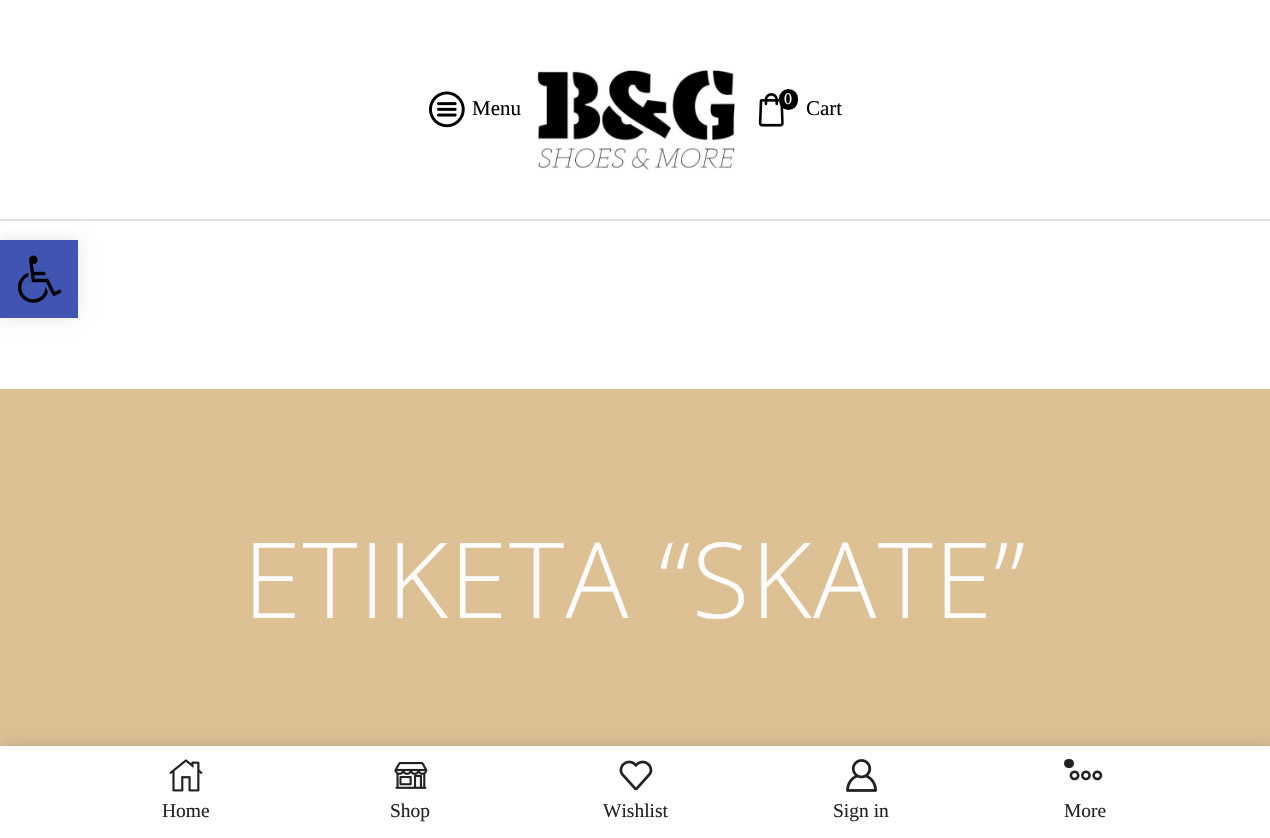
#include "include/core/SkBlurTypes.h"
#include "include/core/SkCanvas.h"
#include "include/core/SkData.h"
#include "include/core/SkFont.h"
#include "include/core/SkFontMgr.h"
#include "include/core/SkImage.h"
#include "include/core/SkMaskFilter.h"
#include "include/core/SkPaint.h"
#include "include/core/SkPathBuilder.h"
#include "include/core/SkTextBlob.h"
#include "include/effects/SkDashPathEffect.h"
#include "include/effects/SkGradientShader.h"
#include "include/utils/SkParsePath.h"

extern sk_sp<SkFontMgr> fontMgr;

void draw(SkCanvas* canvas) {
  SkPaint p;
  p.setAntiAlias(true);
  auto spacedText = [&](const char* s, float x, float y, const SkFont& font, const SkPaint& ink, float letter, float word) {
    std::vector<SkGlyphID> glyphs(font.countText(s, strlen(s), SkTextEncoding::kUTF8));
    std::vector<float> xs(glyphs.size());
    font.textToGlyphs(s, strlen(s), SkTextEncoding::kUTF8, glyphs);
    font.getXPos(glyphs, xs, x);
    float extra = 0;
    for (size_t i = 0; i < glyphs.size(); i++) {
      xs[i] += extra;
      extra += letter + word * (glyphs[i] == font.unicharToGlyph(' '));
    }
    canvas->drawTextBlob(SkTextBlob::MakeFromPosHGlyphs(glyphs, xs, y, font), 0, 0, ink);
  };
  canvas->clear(SkColorSetRGB(221, 193, 148));
  p.setColor(SK_ColorWHITE);
  canvas->drawRect(SkRect::MakeLTRB(0, 0, 1270, 219), p);
  p.setColor(SkColorSetRGB(225, 225, 225));
  canvas->drawRect(SkRect::MakeLTRB(0, 219, 1270, 221), p);
  p.setColor(SK_ColorWHITE);
  canvas->drawRect(SkRect::MakeLTRB(0, 221, 1270, 389), p);
  p.setColor(SkColorSetARGB(26, 0, 0, 0));
  p.setMaskFilter(SkMaskFilter::MakeBlur(kNormal_SkBlurStyle, 7.5f));
  canvas->drawRect(SkRect::MakeLTRB(0, 240, 78, 318), p);
  p.setMaskFilter(nullptr);
  p.setColor(SkColorSetRGB(64, 84, 178));
  canvas->drawRect(SkRect::MakeLTRB(0, 240, 78, 318), p);
  canvas->drawImageRect(SkImages::DeferredFromEncodedData(SkData::MakeFromFileName("images/1.png")), SkRect::MakeLTRB(17, 255, 62, 303), SkSamplingOptions());
  canvas->drawImageRect(SkImages::DeferredFromEncodedData(SkData::MakeFromFileName("images/2.png")), SkRect::MakeLTRB(429, 91, 465, 128), SkSamplingOptions());
  canvas->drawImageRect(SkImages::DeferredFromEncodedData(SkData::MakeFromFileName("images/3.png")), SkRect::MakeLTRB(537, 69, 736, 170), SkSamplingOptions());
  canvas->drawImageRect(SkImages::DeferredFromEncodedData(SkData::MakeFromFileName("images/4.png")), SkRect::MakeLTRB(758, 93, 784, 127), SkSamplingOptions());
  p.setColor(SK_ColorBLACK);
  canvas->drawRoundRect(SkRect::MakeLTRB(779, 89, 798, 110), 9.5f, 9.5f, p);
  p.setColor(SkColorSetARGB(38, 0, 0, 0));
  p.setMaskFilter(SkMaskFilter::MakeBlur(kNormal_SkBlurStyle, 9));
  canvas->drawRect(SkRect::MakeLTRB(3, 746, 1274, 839), p);
  p.setMaskFilter(nullptr);
  p.setColor(SK_ColorWHITE);
  canvas->drawRect(SkRect::MakeLTRB(0, 746, 1270, 838), p);
  canvas->drawImageRect(SkImages::DeferredFromEncodedData(SkData::MakeFromFileName("images/5.png")), SkRect::MakeLTRB(169, 759, 203, 792), SkSamplingOptions());
  canvas->drawImageRect(SkImages::DeferredFromEncodedData(SkData::MakeFromFileName("images/6.png")), SkRect::MakeLTRB(394, 762, 428, 789), SkSamplingOptions());
  canvas->drawImageRect(SkImages::DeferredFromEncodedData(SkData::MakeFromFileName("images/7.png")), SkRect::MakeLTRB(619, 760, 653, 791), SkSamplingOptions());
  canvas->drawImageRect(SkImages::DeferredFromEncodedData(SkData::MakeFromFileName("images/8.png")), SkRect::MakeLTRB(846, 759, 877, 792), SkSamplingOptions());
  p.setColor(SkColorSetRGB(34, 34, 34));
  canvas->drawRoundRect(SkRect::MakeLTRB(1064, 759, 1074, 768), 4.5f, 4.5f, p);
  canvas->drawImageRect(SkImages::DeferredFromEncodedData(SkData::MakeFromFileName("images/9.png")), SkRect::MakeLTRB(1069, 770, 1103, 781), SkSamplingOptions());
  SkFont font1(fontMgr->matchFamilyStyle("Liberation Serif", SkFontStyle::Normal()), 21);
  font1.setSubpixel(true);
  p.setColor(SK_ColorBLACK);
  canvas->drawString("Menu", 472, 115, font1, p);
  SkFont font2(fontMgr->matchFamilyStyle("Liberation Serif", SkFontStyle::Normal()), 16);
  font2.setSubpixel(true);
  p.setColor(SkColorSetRGB(252, 252, 252));
  canvas->drawString("0", 784, 104, font2, p);
  p.setColor(SK_ColorBLACK);
  canvas->drawString("Cart", 806, 115, font1, p);
  SkFont font3(fontMgr->matchFamilyStyle("Open Sans", SkFontStyle(300, SkFontStyle::kNormal_Width, SkFontStyle::kUpright_Slant)), 105);
  font3.setSubpixel(true);
  p.setColor(SkColorSetRGB(252, 252, 252));
  spacedText("ΕΤΙΚΕΤΑ “SKATE”", 243, 618, font3, p, 1.5f, 0);
  SkFont font4(fontMgr->matchFamilyStyle("Liberation Serif", SkFontStyle::Normal()), 19.5f);
  font4.setSubpixel(true);
  p.setColor(SkColorSetRGB(34, 34, 34));
  canvas->drawString("Home", 162, 817, font4, p);
  canvas->drawString("Shop", 390, 817, font4, p);
  canvas->drawString("Wishlist", 603, 817, font4, p);
  canvas->drawString("Sign in", 833, 817, font4, p);
  canvas->drawString("More", 1064, 817, font4, p);
}
